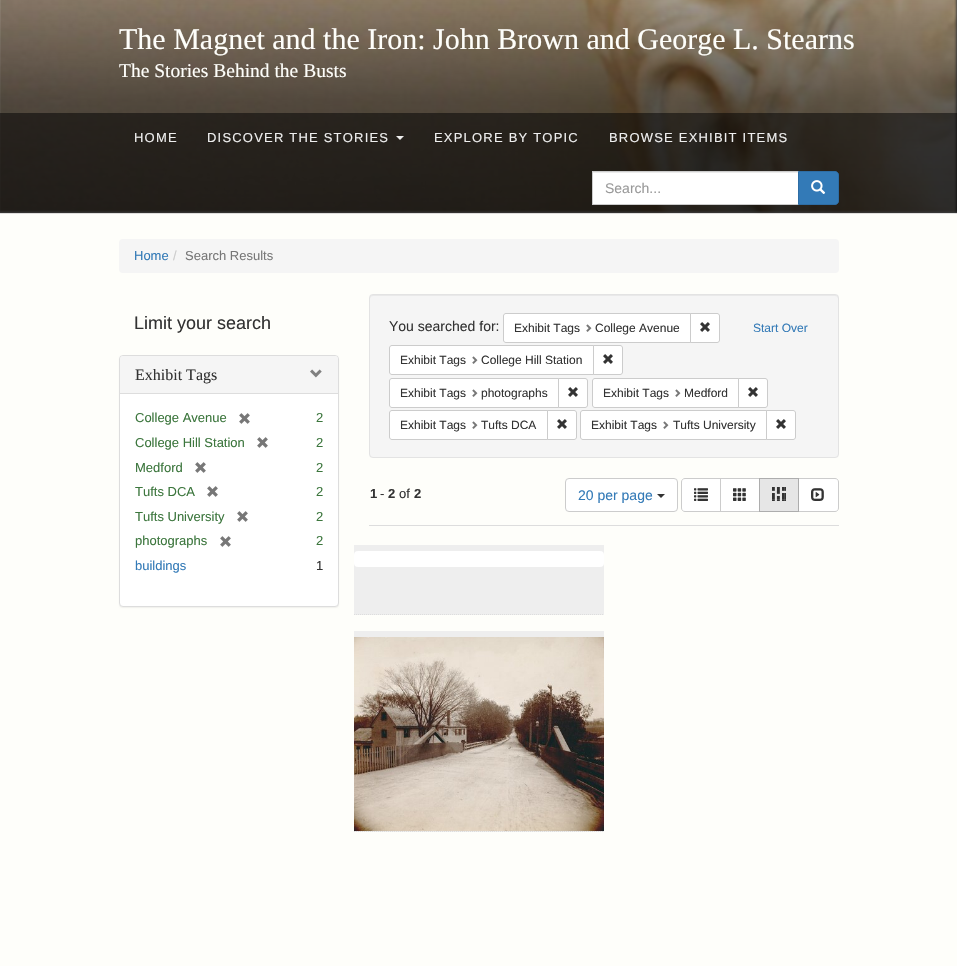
#include "include/core/SkBlurTypes.h"
#include "include/core/SkCanvas.h"
#include "include/core/SkData.h"
#include "include/core/SkFont.h"
#include "include/core/SkFontMgr.h"
#include "include/core/SkImage.h"
#include "include/core/SkMaskFilter.h"
#include "include/core/SkPaint.h"
#include "include/core/SkPathBuilder.h"
#include "include/core/SkTextBlob.h"
#include "include/effects/SkDashPathEffect.h"
#include "include/effects/SkGradientShader.h"
#include "include/utils/SkParsePath.h"

extern sk_sp<SkFontMgr> fontMgr;

void draw(SkCanvas* canvas) {
  SkPaint p;
  p.setAntiAlias(true);
  auto spacedText = [&](const char* s, float x, float y, const SkFont& font, const SkPaint& ink, float letter, float word) {
    std::vector<SkGlyphID> glyphs(font.countText(s, strlen(s), SkTextEncoding::kUTF8));
    std::vector<float> xs(glyphs.size());
    font.textToGlyphs(s, strlen(s), SkTextEncoding::kUTF8, glyphs);
    font.getXPos(glyphs, xs, x);
    float extra = 0;
    for (size_t i = 0; i < glyphs.size(); i++) {
      xs[i] += extra;
      extra += letter + word * (glyphs[i] == font.unicharToGlyph(' '));
    }
    canvas->drawTextBlob(SkTextBlob::MakeFromPosHGlyphs(glyphs, xs, y, font), 0, 0, ink);
  };
  canvas->clear(SkColorSetRGB(254, 254, 250));
  p.setColor(SkColorSetRGB(245, 245, 245));
  canvas->drawRect(SkRect::MakeLTRB(0, 0, 957, 213), p);
  p.setColor(SkColorSetRGB(231, 231, 231));
  canvas->drawRect(SkRect::MakeLTRB(0, 213, 957, 214), p);
  canvas->drawImageRect(SkImages::DeferredFromEncodedData(SkData::MakeFromFileName("images/1.png")), SkRect::MakeLTRB(0, 0, 957, 214), SkSamplingOptions());
  p.setColor(SK_ColorBLACK);
  p.setMaskFilter(SkMaskFilter::MakeBlur(kNormal_SkBlurStyle, 1));
  canvas->drawRect(SkRect::MakeLTRB(956, -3, 957, 212), p);
  p.setMaskFilter(nullptr);
  {
    const SkColor colors[] = {SkColorSetARGB(0, 0, 0, 0), SkColorSetARGB(102, 0, 0, 0), SkColorSetARGB(128, 0, 0, 0)};
    const float stops[] = {0, 0.5f, 1};
    const SkPoint ends[] = {{479, -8}, {479, 213}};
    p.setShader(SkGradientShader::MakeLinear(ends, colors, stops, 3, SkTileMode::kClamp));
    p.setAlpha(255);
  }
  canvas->drawRect(SkRect::MakeLTRB(0, 0, 957, 213), p);
  p.setShader(nullptr);
  p.setColor(SkColorSetARGB(128, 0, 0, 0));
  canvas->drawRect(SkRect::MakeLTRB(0, 113, 957, 213), p);
  p.setColor(SkColorSetRGB(238, 238, 238));
  canvas->drawPath(SkPathBuilder().moveTo(396, 136).lineTo(404, 136).lineTo(400, 140).close().detach(), p);
  p.setColor(SK_ColorWHITE);
  canvas->drawRect(SkRect::MakeLTRB(593, 173, 798, 204), p);
  p.setColor(SkColorSetRGB(236, 236, 236));
  canvas->drawRect(SkRect::MakeLTRB(593, 172, 798, 173), p);
  p.setStyle(SkPaint::kStroke_Style);
  p.setStrokeWidth(1);
  p.setColor(SkColorSetRGB(204, 204, 204));
  canvas->drawRect(SkRect::MakeLTRB(592.5f, 171.5f, 798.5f, 204.5f), p);
  p.setStyle(SkPaint::kFill_Style);
  p.setColor(SkColorSetRGB(51, 122, 183));
  canvas->drawPath(SkPathBuilder().moveTo(798.5f, 171.5f).lineTo(835, 171.5f).cubicTo(837, 171.5f, 838.5f, 173, 838.5f, 175).lineTo(838.5f, 201).cubicTo(838.5f, 203, 837, 204.5f, 835, 204.5f).lineTo(798.5f, 204.5f).close().detach(), p);
  p.setStyle(SkPaint::kStroke_Style);
  p.setColor(SkColorSetRGB(46, 109, 164));
  canvas->drawPath(SkPathBuilder().moveTo(798.5f, 171.5f).lineTo(835, 171.5f).cubicTo(837, 171.5f, 838.5f, 173, 838.5f, 175).lineTo(838.5f, 201).cubicTo(838.5f, 203, 837, 204.5f, 835, 204.5f).lineTo(798.5f, 204.5f).close().detach(), p);
  canvas->drawImageRect(SkImages::DeferredFromEncodedData(SkData::MakeFromFileName("images/2.png")), SkRect::MakeLTRB(811, 180, 826, 194), SkSamplingOptions());
  p.setStyle(SkPaint::kFill_Style);
  p.setColor(SkColorSetRGB(245, 245, 245));
  canvas->drawRoundRect(SkRect::MakeLTRB(119, 239, 839, 273), 4, 4, p);
  p.setColor(SkColorSetARGB(13, 0, 0, 0));
  p.setMaskFilter(SkMaskFilter::MakeBlur(kNormal_SkBlurStyle, 0.5f));
  canvas->drawRoundRect(SkRect::MakeLTRB(119, 356, 339, 608), 4, 4, p);
  p.setMaskFilter(nullptr);
  p.setColor(SK_ColorWHITE);
  canvas->drawRoundRect(SkRect::MakeLTRB(119.5f, 355.5f, 338.5f, 606.5f), 3.5f, 3.5f, p);
  p.setStyle(SkPaint::kStroke_Style);
  p.setColor(SkColorSetRGB(221, 221, 221));
  canvas->drawRoundRect(SkRect::MakeLTRB(119.5f, 355.5f, 338.5f, 606.5f), 3.5f, 3.5f, p);
  p.setStyle(SkPaint::kFill_Style);
  p.setColor(SkColorSetRGB(245, 245, 245));
  canvas->drawPath(SkPathBuilder().moveTo(123, 356).lineTo(335, 356).cubicTo(336.5f, 356, 338, 357.5f, 338, 359).lineTo(338, 393).lineTo(120, 393).lineTo(120, 359).cubicTo(120, 357.5f, 121.5f, 356, 123, 356).close().detach(), p);
  canvas->drawImageRect(SkImages::DeferredFromEncodedData(SkData::MakeFromFileName("images/3.png")), SkRect::MakeLTRB(310, 369, 322, 378), SkSamplingOptions());
  p.setColor(SkColorSetRGB(221, 221, 221));
  canvas->drawRect(SkRect::MakeLTRB(120, 393, 338, 394), p);
  canvas->drawImageRect(SkImages::DeferredFromEncodedData(SkData::MakeFromFileName("images/4.png")), SkRect::MakeLTRB(239, 413, 250, 424), SkSamplingOptions());
  canvas->drawImageRect(SkImages::DeferredFromEncodedData(SkData::MakeFromFileName("images/4.png")), SkRect::MakeLTRB(257, 437, 268, 448), SkSamplingOptions());
  canvas->drawImageRect(SkImages::DeferredFromEncodedData(SkData::MakeFromFileName("images/4.png")), SkRect::MakeLTRB(195, 462, 206, 473), SkSamplingOptions());
  canvas->drawImageRect(SkImages::DeferredFromEncodedData(SkData::MakeFromFileName("images/4.png")), SkRect::MakeLTRB(207, 486, 218, 497), SkSamplingOptions());
  canvas->drawImageRect(SkImages::DeferredFromEncodedData(SkData::MakeFromFileName("images/4.png")), SkRect::MakeLTRB(237, 511, 248, 522), SkSamplingOptions());
  canvas->drawImageRect(SkImages::DeferredFromEncodedData(SkData::MakeFromFileName("images/4.png")), SkRect::MakeLTRB(220, 536, 231, 547), SkSamplingOptions());
  p.setColor(SkColorSetRGB(245, 245, 245));
  canvas->drawRoundRect(SkRect::MakeLTRB(369, 294, 839, 458), 4, 4, p);
  p.setColor(SkColorSetRGB(233, 233, 233));
  canvas->drawPath(SkPathBuilder().moveTo(373, 296).lineTo(835, 296).cubicTo(837, 296, 838, 297, 838, 299).lineTo(838, 298).cubicTo(838, 296, 837, 295, 835, 295).lineTo(373, 295).cubicTo(371, 295, 370, 296, 370, 298).lineTo(370, 299).cubicTo(370, 297, 371, 296, 373, 296).close().detach(), p);
  p.setStyle(SkPaint::kStroke_Style);
  p.setColor(SkColorSetRGB(227, 227, 227));
  canvas->drawRoundRect(SkRect::MakeLTRB(369.5f, 294.5f, 838.5f, 457.5f), 3.5f, 3.5f, p);
  p.setStyle(SkPaint::kFill_Style);
  p.setColor(SK_ColorWHITE);
  canvas->drawPath(SkPathBuilder().moveTo(506, 313.5f).lineTo(690.5f, 313.5f).lineTo(690.5f, 342.5f).lineTo(506, 342.5f).cubicTo(504.5f, 342.5f, 503.5f, 341.5f, 503.5f, 340).lineTo(503.5f, 316).cubicTo(503.5f, 314.5f, 504.5f, 313.5f, 506, 313.5f).close().detach(), p);
  p.setStyle(SkPaint::kStroke_Style);
  p.setColor(SkColorSetRGB(204, 204, 204));
  canvas->drawPath(SkPathBuilder().moveTo(506, 313.5f).lineTo(690.5f, 313.5f).lineTo(690.5f, 342.5f).lineTo(506, 342.5f).cubicTo(504.5f, 342.5f, 503.5f, 341.5f, 503.5f, 340).lineTo(503.5f, 316).cubicTo(503.5f, 314.5f, 504.5f, 313.5f, 506, 313.5f).close().detach(), p);
  canvas->drawImageRect(SkImages::DeferredFromEncodedData(SkData::MakeFromFileName("images/5.png")), SkRect::MakeLTRB(586, 324, 592, 332), SkSamplingOptions());
  p.setStyle(SkPaint::kFill_Style);
  p.setColor(SK_ColorWHITE);
  canvas->drawPath(SkPathBuilder().moveTo(690.5f, 313.5f).lineTo(717, 313.5f).cubicTo(718.5f, 313.5f, 719.5f, 314.5f, 719.5f, 316).lineTo(719.5f, 340).cubicTo(719.5f, 341.5f, 718.5f, 342.5f, 717, 342.5f).lineTo(690.5f, 342.5f).close().detach(), p);
  p.setStyle(SkPaint::kStroke_Style);
  p.setColor(SkColorSetRGB(204, 204, 204));
  canvas->drawPath(SkPathBuilder().moveTo(690.5f, 313.5f).lineTo(717, 313.5f).cubicTo(718.5f, 313.5f, 719.5f, 314.5f, 719.5f, 316).lineTo(719.5f, 340).cubicTo(719.5f, 341.5f, 718.5f, 342.5f, 717, 342.5f).lineTo(690.5f, 342.5f).close().detach(), p);
  canvas->drawImageRect(SkImages::DeferredFromEncodedData(SkData::MakeFromFileName("images/6.png")), SkRect::MakeLTRB(700, 322, 710, 332), SkSamplingOptions());
  p.setStyle(SkPaint::kFill_Style);
  p.setColor(SK_ColorWHITE);
  canvas->drawPath(SkPathBuilder().moveTo(392, 345.5f).lineTo(593.5f, 345.5f).lineTo(593.5f, 374.5f).lineTo(392, 374.5f).cubicTo(390.5f, 374.5f, 389.5f, 373.5f, 389.5f, 372).lineTo(389.5f, 348).cubicTo(389.5f, 346.5f, 390.5f, 345.5f, 392, 345.5f).close().detach(), p);
  p.setStyle(SkPaint::kStroke_Style);
  p.setColor(SkColorSetRGB(204, 204, 204));
  canvas->drawPath(SkPathBuilder().moveTo(392, 345.5f).lineTo(593.5f, 345.5f).lineTo(593.5f, 374.5f).lineTo(392, 374.5f).cubicTo(390.5f, 374.5f, 389.5f, 373.5f, 389.5f, 372).lineTo(389.5f, 348).cubicTo(389.5f, 346.5f, 390.5f, 345.5f, 392, 345.5f).close().detach(), p);
  canvas->drawImageRect(SkImages::DeferredFromEncodedData(SkData::MakeFromFileName("images/5.png")), SkRect::MakeLTRB(472, 356, 478, 364), SkSamplingOptions());
  p.setStyle(SkPaint::kFill_Style);
  p.setColor(SK_ColorWHITE);
  canvas->drawPath(SkPathBuilder().moveTo(593.5f, 345.5f).lineTo(620, 345.5f).cubicTo(621.5f, 345.5f, 622.5f, 346.5f, 622.5f, 348).lineTo(622.5f, 372).cubicTo(622.5f, 373.5f, 621.5f, 374.5f, 620, 374.5f).lineTo(593.5f, 374.5f).close().detach(), p);
  p.setStyle(SkPaint::kStroke_Style);
  p.setColor(SkColorSetRGB(204, 204, 204));
  canvas->drawPath(SkPathBuilder().moveTo(593.5f, 345.5f).lineTo(620, 345.5f).cubicTo(621.5f, 345.5f, 622.5f, 346.5f, 622.5f, 348).lineTo(622.5f, 372).cubicTo(622.5f, 373.5f, 621.5f, 374.5f, 620, 374.5f).lineTo(593.5f, 374.5f).close().detach(), p);
  canvas->drawImageRect(SkImages::DeferredFromEncodedData(SkData::MakeFromFileName("images/6.png")), SkRect::MakeLTRB(603, 354, 613, 364), SkSamplingOptions());
  p.setStyle(SkPaint::kFill_Style);
  p.setColor(SK_ColorWHITE);
  canvas->drawPath(SkPathBuilder().moveTo(392, 378.5f).lineTo(558.5f, 378.5f).lineTo(558.5f, 407.5f).lineTo(392, 407.5f).cubicTo(390.5f, 407.5f, 389.5f, 406.5f, 389.5f, 405).lineTo(389.5f, 381).cubicTo(389.5f, 379.5f, 390.5f, 378.5f, 392, 378.5f).close().detach(), p);
  p.setStyle(SkPaint::kStroke_Style);
  p.setColor(SkColorSetRGB(204, 204, 204));
  canvas->drawPath(SkPathBuilder().moveTo(392, 378.5f).lineTo(558.5f, 378.5f).lineTo(558.5f, 407.5f).lineTo(392, 407.5f).cubicTo(390.5f, 407.5f, 389.5f, 406.5f, 389.5f, 405).lineTo(389.5f, 381).cubicTo(389.5f, 379.5f, 390.5f, 378.5f, 392, 378.5f).close().detach(), p);
  canvas->drawImageRect(SkImages::DeferredFromEncodedData(SkData::MakeFromFileName("images/5.png")), SkRect::MakeLTRB(472, 389, 478, 397), SkSamplingOptions());
  p.setStyle(SkPaint::kFill_Style);
  p.setColor(SK_ColorWHITE);
  canvas->drawPath(SkPathBuilder().moveTo(558.5f, 378.5f).lineTo(585, 378.5f).cubicTo(586.5f, 378.5f, 587.5f, 379.5f, 587.5f, 381).lineTo(587.5f, 405).cubicTo(587.5f, 406.5f, 586.5f, 407.5f, 585, 407.5f).lineTo(558.5f, 407.5f).close().detach(), p);
  p.setStyle(SkPaint::kStroke_Style);
  p.setColor(SkColorSetRGB(204, 204, 204));
  canvas->drawPath(SkPathBuilder().moveTo(558.5f, 378.5f).lineTo(585, 378.5f).cubicTo(586.5f, 378.5f, 587.5f, 379.5f, 587.5f, 381).lineTo(587.5f, 405).cubicTo(587.5f, 406.5f, 586.5f, 407.5f, 585, 407.5f).lineTo(558.5f, 407.5f).close().detach(), p);
  canvas->drawImageRect(SkImages::DeferredFromEncodedData(SkData::MakeFromFileName("images/6.png")), SkRect::MakeLTRB(568, 387, 578, 397), SkSamplingOptions());
  p.setStyle(SkPaint::kFill_Style);
  p.setColor(SK_ColorWHITE);
  canvas->drawPath(SkPathBuilder().moveTo(595, 378.5f).lineTo(738.5f, 378.5f).lineTo(738.5f, 407.5f).lineTo(595, 407.5f).cubicTo(593.5f, 407.5f, 592.5f, 406.5f, 592.5f, 405).lineTo(592.5f, 381).cubicTo(592.5f, 379.5f, 593.5f, 378.5f, 595, 378.5f).close().detach(), p);
  p.setStyle(SkPaint::kStroke_Style);
  p.setColor(SkColorSetRGB(204, 204, 204));
  canvas->drawPath(SkPathBuilder().moveTo(595, 378.5f).lineTo(738.5f, 378.5f).lineTo(738.5f, 407.5f).lineTo(595, 407.5f).cubicTo(593.5f, 407.5f, 592.5f, 406.5f, 592.5f, 405).lineTo(592.5f, 381).cubicTo(592.5f, 379.5f, 593.5f, 378.5f, 595, 378.5f).close().detach(), p);
  canvas->drawImageRect(SkImages::DeferredFromEncodedData(SkData::MakeFromFileName("images/5.png")), SkRect::MakeLTRB(675, 389, 681, 397), SkSamplingOptions());
  p.setStyle(SkPaint::kFill_Style);
  p.setColor(SK_ColorWHITE);
  canvas->drawPath(SkPathBuilder().moveTo(738.5f, 378.5f).lineTo(765, 378.5f).cubicTo(766.5f, 378.5f, 767.5f, 379.5f, 767.5f, 381).lineTo(767.5f, 405).cubicTo(767.5f, 406.5f, 766.5f, 407.5f, 765, 407.5f).lineTo(738.5f, 407.5f).close().detach(), p);
  p.setStyle(SkPaint::kStroke_Style);
  p.setColor(SkColorSetRGB(204, 204, 204));
  canvas->drawPath(SkPathBuilder().moveTo(738.5f, 378.5f).lineTo(765, 378.5f).cubicTo(766.5f, 378.5f, 767.5f, 379.5f, 767.5f, 381).lineTo(767.5f, 405).cubicTo(767.5f, 406.5f, 766.5f, 407.5f, 765, 407.5f).lineTo(738.5f, 407.5f).close().detach(), p);
  canvas->drawImageRect(SkImages::DeferredFromEncodedData(SkData::MakeFromFileName("images/6.png")), SkRect::MakeLTRB(748, 387, 758, 397), SkSamplingOptions());
  p.setStyle(SkPaint::kFill_Style);
  p.setColor(SK_ColorWHITE);
  canvas->drawPath(SkPathBuilder().moveTo(392, 410.5f).lineTo(547.5f, 410.5f).lineTo(547.5f, 439.5f).lineTo(392, 439.5f).cubicTo(390.5f, 439.5f, 389.5f, 438.5f, 389.5f, 437).lineTo(389.5f, 413).cubicTo(389.5f, 411.5f, 390.5f, 410.5f, 392, 410.5f).close().detach(), p);
  p.setStyle(SkPaint::kStroke_Style);
  p.setColor(SkColorSetRGB(204, 204, 204));
  canvas->drawPath(SkPathBuilder().moveTo(392, 410.5f).lineTo(547.5f, 410.5f).lineTo(547.5f, 439.5f).lineTo(392, 439.5f).cubicTo(390.5f, 439.5f, 389.5f, 438.5f, 389.5f, 437).lineTo(389.5f, 413).cubicTo(389.5f, 411.5f, 390.5f, 410.5f, 392, 410.5f).close().detach(), p);
  canvas->drawImageRect(SkImages::DeferredFromEncodedData(SkData::MakeFromFileName("images/5.png")), SkRect::MakeLTRB(472, 421, 478, 429), SkSamplingOptions());
  p.setStyle(SkPaint::kFill_Style);
  p.setColor(SK_ColorWHITE);
  canvas->drawPath(SkPathBuilder().moveTo(547.5f, 410.5f).lineTo(574, 410.5f).cubicTo(575.5f, 410.5f, 576.5f, 411.5f, 576.5f, 413).lineTo(576.5f, 437).cubicTo(576.5f, 438.5f, 575.5f, 439.5f, 574, 439.5f).lineTo(547.5f, 439.5f).close().detach(), p);
  p.setStyle(SkPaint::kStroke_Style);
  p.setColor(SkColorSetRGB(204, 204, 204));
  canvas->drawPath(SkPathBuilder().moveTo(547.5f, 410.5f).lineTo(574, 410.5f).cubicTo(575.5f, 410.5f, 576.5f, 411.5f, 576.5f, 413).lineTo(576.5f, 437).cubicTo(576.5f, 438.5f, 575.5f, 439.5f, 574, 439.5f).lineTo(547.5f, 439.5f).close().detach(), p);
  canvas->drawImageRect(SkImages::DeferredFromEncodedData(SkData::MakeFromFileName("images/6.png")), SkRect::MakeLTRB(557, 419, 567, 429), SkSamplingOptions());
  p.setStyle(SkPaint::kFill_Style);
  p.setColor(SK_ColorWHITE);
  canvas->drawPath(SkPathBuilder().moveTo(583, 410.5f).lineTo(766.5f, 410.5f).lineTo(766.5f, 439.5f).lineTo(583, 439.5f).cubicTo(581.5f, 439.5f, 580.5f, 438.5f, 580.5f, 437).lineTo(580.5f, 413).cubicTo(580.5f, 411.5f, 581.5f, 410.5f, 583, 410.5f).close().detach(), p);
  p.setStyle(SkPaint::kStroke_Style);
  p.setColor(SkColorSetRGB(204, 204, 204));
  canvas->drawPath(SkPathBuilder().moveTo(583, 410.5f).lineTo(766.5f, 410.5f).lineTo(766.5f, 439.5f).lineTo(583, 439.5f).cubicTo(581.5f, 439.5f, 580.5f, 438.5f, 580.5f, 437).lineTo(580.5f, 413).cubicTo(580.5f, 411.5f, 581.5f, 410.5f, 583, 410.5f).close().detach(), p);
  canvas->drawImageRect(SkImages::DeferredFromEncodedData(SkData::MakeFromFileName("images/5.png")), SkRect::MakeLTRB(663, 421, 669, 429), SkSamplingOptions());
  p.setStyle(SkPaint::kFill_Style);
  p.setColor(SK_ColorWHITE);
  canvas->drawPath(SkPathBuilder().moveTo(766.5f, 410.5f).lineTo(793, 410.5f).cubicTo(794.5f, 410.5f, 795.5f, 411.5f, 795.5f, 413).lineTo(795.5f, 437).cubicTo(795.5f, 438.5f, 794.5f, 439.5f, 793, 439.5f).lineTo(766.5f, 439.5f).close().detach(), p);
  p.setStyle(SkPaint::kStroke_Style);
  p.setColor(SkColorSetRGB(204, 204, 204));
  canvas->drawPath(SkPathBuilder().moveTo(766.5f, 410.5f).lineTo(793, 410.5f).cubicTo(794.5f, 410.5f, 795.5f, 411.5f, 795.5f, 413).lineTo(795.5f, 437).cubicTo(795.5f, 438.5f, 794.5f, 439.5f, 793, 439.5f).lineTo(766.5f, 439.5f).close().detach(), p);
  canvas->drawImageRect(SkImages::DeferredFromEncodedData(SkData::MakeFromFileName("images/6.png")), SkRect::MakeLTRB(776, 419, 786, 429), SkSamplingOptions());
  p.setStyle(SkPaint::kFill_Style);
  p.setColor(SkColorSetRGB(221, 221, 221));
  canvas->drawRect(SkRect::MakeLTRB(369, 525, 839, 526), p);
  p.setColor(SK_ColorWHITE);
  canvas->drawRoundRect(SkRect::MakeLTRB(565.5f, 478.5f, 677.5f, 511.5f), 3.5f, 3.5f, p);
  p.setStyle(SkPaint::kStroke_Style);
  p.setColor(SkColorSetRGB(204, 204, 204));
  canvas->drawRoundRect(SkRect::MakeLTRB(565.5f, 478.5f, 677.5f, 511.5f), 3.5f, 3.5f, p);
  p.setStyle(SkPaint::kFill_Style);
  p.setColor(SkColorSetRGB(51, 51, 51));
  canvas->drawPath(SkPathBuilder().moveTo(657, 494).lineTo(665, 494).lineTo(661, 498).close().detach(), p);
  p.setColor(SK_ColorWHITE);
  canvas->drawPath(SkPathBuilder().moveTo(685, 478.5f).lineTo(720.5f, 478.5f).lineTo(720.5f, 511.5f).lineTo(685, 511.5f).cubicTo(683, 511.5f, 681.5f, 510, 681.5f, 508).lineTo(681.5f, 482).cubicTo(681.5f, 480, 683, 478.5f, 685, 478.5f).close().detach(), p);
  p.setStyle(SkPaint::kStroke_Style);
  p.setColor(SkColorSetRGB(204, 204, 204));
  canvas->drawPath(SkPathBuilder().moveTo(685, 478.5f).lineTo(720.5f, 478.5f).lineTo(720.5f, 511.5f).lineTo(685, 511.5f).cubicTo(683, 511.5f, 681.5f, 510, 681.5f, 508).lineTo(681.5f, 482).cubicTo(681.5f, 480, 683, 478.5f, 685, 478.5f).close().detach(), p);
  canvas->drawImageRect(SkImages::DeferredFromEncodedData(SkData::MakeFromFileName("images/7.png")), SkRect::MakeLTRB(694, 488, 708, 501), SkSamplingOptions());
  p.setStyle(SkPaint::kFill_Style);
  p.setColor(SK_ColorWHITE);
  canvas->drawRect(SkRect::MakeLTRB(720.5f, 478.5f, 759.5f, 511.5f), p);
  p.setStyle(SkPaint::kStroke_Style);
  p.setColor(SkColorSetRGB(204, 204, 204));
  canvas->drawRect(SkRect::MakeLTRB(720.5f, 478.5f, 759.5f, 511.5f), p);
  canvas->drawImageRect(SkImages::DeferredFromEncodedData(SkData::MakeFromFileName("images/8.png")), SkRect::MakeLTRB(733, 488, 746, 501), SkSamplingOptions());
  p.setStyle(SkPaint::kFill_Style);
  p.setColor(SK_ColorWHITE);
  canvas->drawPath(SkPathBuilder().moveTo(798.5f, 478.5f).lineTo(835, 478.5f).cubicTo(837, 478.5f, 838.5f, 480, 838.5f, 482).lineTo(838.5f, 508).cubicTo(838.5f, 510, 837, 511.5f, 835, 511.5f).lineTo(798.5f, 511.5f).close().detach(), p);
  p.setStyle(SkPaint::kStroke_Style);
  p.setColor(SkColorSetRGB(204, 204, 204));
  canvas->drawPath(SkPathBuilder().moveTo(798.5f, 478.5f).lineTo(835, 478.5f).cubicTo(837, 478.5f, 838.5f, 480, 838.5f, 482).lineTo(838.5f, 508).cubicTo(838.5f, 510, 837, 511.5f, 835, 511.5f).lineTo(798.5f, 511.5f).close().detach(), p);
  p.setStyle(SkPaint::kFill_Style);
  p.setColor(SkColorSetRGB(230, 230, 230));
  canvas->drawRect(SkRect::MakeLTRB(759.5f, 478.5f, 798.5f, 511.5f), p);
  p.setStyle(SkPaint::kStroke_Style);
  p.setColor(SkColorSetRGB(173, 173, 173));
  canvas->drawRect(SkRect::MakeLTRB(759.5f, 478.5f, 798.5f, 511.5f), p);
  canvas->drawImageRect(SkImages::DeferredFromEncodedData(SkData::MakeFromFileName("images/9.png")), SkRect::MakeLTRB(772, 487, 786, 501), SkSamplingOptions());
  canvas->drawImageRect(SkImages::DeferredFromEncodedData(SkData::MakeFromFileName("images/10.png")), SkRect::MakeLTRB(811, 488, 824, 501), SkSamplingOptions());
  p.setStyle(SkPaint::kFill_Style);
  p.setColor(SkColorSetRGB(238, 238, 238));
  canvas->drawRect(SkRect::MakeLTRB(354, 545, 604, 615), p);
  p.setStyle(SkPaint::kStroke_Style);
  p.setColor(SkColorSetRGB(221, 221, 221));
  p.setPathEffect(SkDashPathEffect::Make({{1, 1}}, 0));
  canvas->drawPath(SkPathBuilder().moveTo(354, 614.5f).lineTo(604, 614.5f).detach(), p);
  p.setPathEffect(nullptr);
  p.setStyle(SkPaint::kFill_Style);
  p.setColor(SK_ColorWHITE);
  canvas->drawRoundRect(SkRect::MakeLTRB(354, 551, 604, 567), 4, 4, p);
  p.setColor(SkColorSetRGB(238, 238, 238));
  canvas->drawRect(SkRect::MakeLTRB(354, 631, 604, 832), p);
  p.setStyle(SkPaint::kStroke_Style);
  p.setColor(SkColorSetRGB(221, 221, 221));
  p.setPathEffect(SkDashPathEffect::Make({{1, 1}}, 0));
  canvas->drawPath(SkPathBuilder().moveTo(354, 831.5f).lineTo(604, 831.5f).detach(), p);
  p.setPathEffect(nullptr);
  canvas->drawImageRect(SkImages::DeferredFromEncodedData(SkData::MakeFromFileName("images/11.png")), SkRect::MakeLTRB(354, 637, 604, 831), SkSamplingOptions());
  SkFont font1(fontMgr->matchFamilyStyle("Liberation Serif", SkFontStyle::Normal()), 30);
  font1.setSubpixel(true);
  p.setStyle(SkPaint::kFill_Style);
  p.setColor(SkColorSetRGB(254, 254, 250));
  canvas->drawString("The Magnet and the Iron: John Brown and George L. Stearns", 119, 49, font1, p);
  SkFont font2(fontMgr->matchFamilyStyle("Liberation Serif", SkFontStyle::Normal()), 19.5f);
  font2.setSubpixel(true);
  canvas->drawString("The Stories Behind the Busts", 119, 77, font2, p);
  SkFont font3(fontMgr->matchFamilyStyle("Liberation Sans", SkFontStyle::Normal()), 13);
  font3.setSubpixel(true);
  p.setColor(SkColorSetRGB(238, 238, 238));
  spacedText("HOME", 134, 142, font3, p, 1.2f, 0);
  spacedText("DISCOVER THE STORIES", 207, 142, font3, p, 1.2f, 0);
  spacedText("EXPLORE BY TOPIC", 434, 142, font3, p, 1.2f, 0);
  spacedText("BROWSE EXHIBIT ITEMS", 609, 142, font3, p, 1.2f, 0);
  SkFont font4(fontMgr->matchFamilyStyle("Liberation Sans", SkFontStyle::Normal()), 14);
  font4.setSubpixel(true);
  p.setColor(SkColorSetRGB(153, 153, 153));
  canvas->drawString("Search...", 605, 193, font4, p);
  p.setColor(SkColorSetRGB(51, 122, 183));
  canvas->drawString("Home", 134, 260, font3, p);
  p.setColor(SkColorSetRGB(204, 204, 204));
  canvas->drawString("/", 173, 260, font3, p);
  p.setColor(SkColorSetRGB(119, 119, 119));
  canvas->drawString("Search Results", 185, 260, font3, p);
  SkFont font5(fontMgr->matchFamilyStyle("Liberation Sans", SkFontStyle::Normal()), 18);
  font5.setSubpixel(true);
  p.setColor(SkColorSetRGB(51, 51, 51));
  canvas->drawString("Limit your search", 134, 329, font5, p);
  SkFont font6(fontMgr->matchFamilyStyle("Liberation Serif", SkFontStyle::Normal()), 16);
  font6.setSubpixel(true);
  canvas->drawString("Exhibit Tags", 135, 380, font6, p);
  p.setColor(SkColorSetRGB(60, 118, 61));
  canvas->drawString("College Avenue", 135, 422, font3, p);
  canvas->drawString("2", 316, 422, font3, p);
  canvas->drawString("College Hill Station", 135, 447, font3, p);
  canvas->drawString("2", 316, 447, font3, p);
  canvas->drawString("Medford", 135, 472, font3, p);
  canvas->drawString("2", 316, 472, font3, p);
  canvas->drawString("Tufts DCA", 135, 496, font3, p);
  canvas->drawString("2", 316, 496, font3, p);
  canvas->drawString("Tufts University", 135, 521, font3, p);
  canvas->drawString("2", 316, 521, font3, p);
  canvas->drawString("photographs", 135, 545, font3, p);
  canvas->drawString("2", 316, 545, font3, p);
  p.setColor(SkColorSetRGB(51, 122, 183));
  canvas->drawString("buildings", 135, 570, font3, p);
  p.setColor(SkColorSetRGB(51, 51, 51));
  canvas->drawString("1", 316, 570, font3, p);
  canvas->drawString("You searched for:", 389, 331, font4, p);
  SkFont font7(fontMgr->matchFamilyStyle("Liberation Sans", SkFontStyle::Normal()), 12);
  font7.setSubpixel(true);
  canvas->drawString("Exhibit Tags", 514, 332, font7, p);
  canvas->drawString("College Avenue", 595, 332, font7, p);
  p.setColor(SkColorSetRGB(51, 122, 183));
  canvas->drawString("Start Over", 753, 332, font7, p);
  p.setColor(SkColorSetRGB(51, 51, 51));
  canvas->drawString("Exhibit Tags", 400, 364, font7, p);
  canvas->drawString("College Hill Station", 481, 364, font7, p);
  canvas->drawString("Exhibit Tags", 400, 397, font7, p);
  canvas->drawString("photographs", 481, 397, font7, p);
  canvas->drawString("Exhibit Tags", 603, 397, font7, p);
  canvas->drawString("Medford", 684, 397, font7, p);
  canvas->drawString("Exhibit Tags", 400, 429, font7, p);
  canvas->drawString("Tufts DCA", 481, 429, font7, p);
  canvas->drawString("Exhibit Tags", 591, 429, font7, p);
  canvas->drawString("Tufts University", 673, 429, font7, p);
  SkFont font8(fontMgr->matchFamilyStyle("Liberation Sans", SkFontStyle::Bold()), 13);
  font8.setSubpixel(true);
  canvas->drawString("1", 370, 498, font8, p);
  canvas->drawString("-", 380, 498, font3, p);
  canvas->drawString("2", 388, 498, font8, p);
  canvas->drawString("of", 399, 498, font3, p);
  canvas->drawString("2", 414, 498, font8, p);
  p.setColor(SkColorSetRGB(51, 122, 183));
  canvas->drawString("20 per page", 578, 500, font4, p);
}
